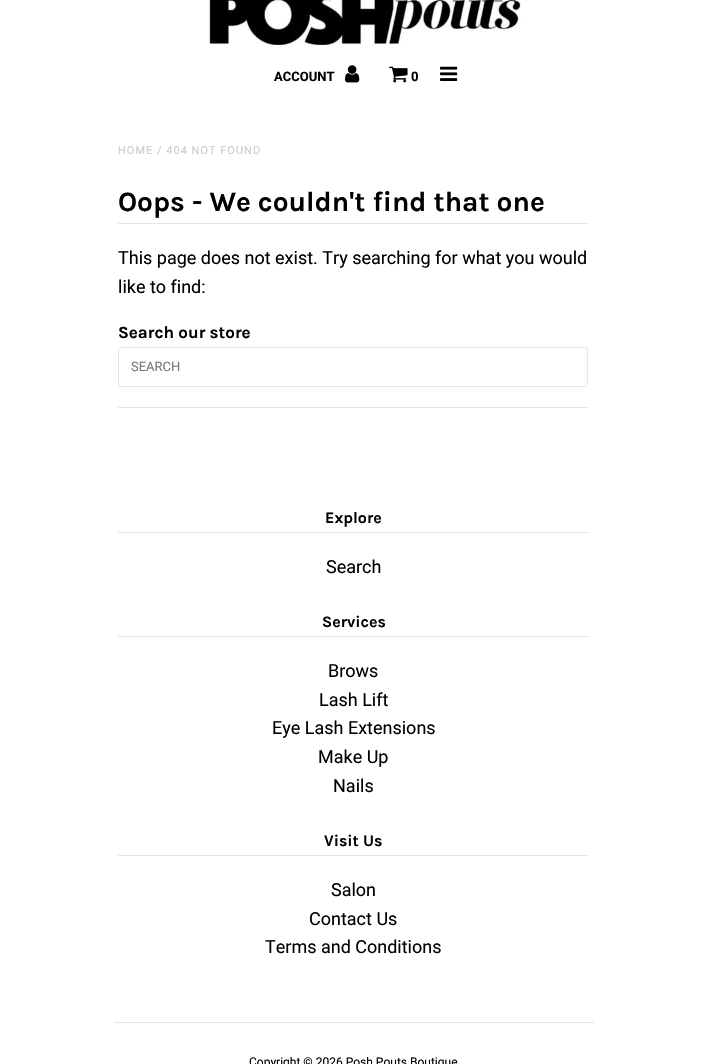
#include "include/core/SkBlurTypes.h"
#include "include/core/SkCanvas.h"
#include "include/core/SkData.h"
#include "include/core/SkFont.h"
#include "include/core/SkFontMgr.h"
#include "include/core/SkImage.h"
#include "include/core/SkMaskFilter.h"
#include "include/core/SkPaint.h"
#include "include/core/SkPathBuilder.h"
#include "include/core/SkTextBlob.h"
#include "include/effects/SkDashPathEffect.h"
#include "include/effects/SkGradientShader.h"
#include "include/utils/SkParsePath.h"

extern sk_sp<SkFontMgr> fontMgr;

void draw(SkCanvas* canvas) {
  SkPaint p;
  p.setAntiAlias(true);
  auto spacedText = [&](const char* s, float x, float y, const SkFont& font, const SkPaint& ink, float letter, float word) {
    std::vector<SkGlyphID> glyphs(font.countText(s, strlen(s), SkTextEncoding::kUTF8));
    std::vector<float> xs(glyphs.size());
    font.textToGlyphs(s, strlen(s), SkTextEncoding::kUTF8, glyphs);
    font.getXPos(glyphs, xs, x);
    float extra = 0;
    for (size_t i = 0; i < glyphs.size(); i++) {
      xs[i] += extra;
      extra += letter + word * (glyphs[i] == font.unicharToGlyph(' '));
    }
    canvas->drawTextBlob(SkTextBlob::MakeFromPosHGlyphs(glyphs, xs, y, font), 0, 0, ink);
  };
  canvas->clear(SK_ColorWHITE);
  canvas->drawImageRect(SkImages::DeferredFromEncodedData(SkData::MakeFromFileName("images/1.png")), SkRect::MakeLTRB(208, 0, 521, 45), SkSamplingOptions());
  canvas->drawImageRect(SkImages::DeferredFromEncodedData(SkData::MakeFromFileName("images/2.png")), SkRect::MakeLTRB(345, 65, 360, 83), SkSamplingOptions());
  canvas->drawImageRect(SkImages::DeferredFromEncodedData(SkData::MakeFromFileName("images/3.png")), SkRect::MakeLTRB(389, 66, 408, 83), SkSamplingOptions());
  canvas->drawImageRect(SkImages::DeferredFromEncodedData(SkData::MakeFromFileName("images/4.png")), SkRect::MakeLTRB(440, 66, 458, 81), SkSamplingOptions());
  p.setColor(SkColorSetRGB(229, 229, 229));
  canvas->drawRect(SkRect::MakeLTRB(118, 223, 588, 224), p);
  canvas->drawRect(SkRect::MakeLTRB(118, 407, 588, 408), p);
  p.setStyle(SkPaint::kStroke_Style);
  p.setStrokeWidth(1);
  canvas->drawRoundRect(SkRect::MakeLTRB(118.5f, 347.5f, 587.5f, 386.5f), 2.5f, 2.5f, p);
  p.setStyle(SkPaint::kFill_Style);
  canvas->drawRect(SkRect::MakeLTRB(118, 532, 588, 533), p);
  canvas->drawRect(SkRect::MakeLTRB(118, 636, 588, 637), p);
  canvas->drawRect(SkRect::MakeLTRB(118, 855, 588, 856), p);
  canvas->drawRect(SkRect::MakeLTRB(114, 1022, 594, 1023), p);
  SkFont font1(fontMgr->matchFamilyStyle("Roboto", SkFontStyle::Bold()), 13);
  font1.setSubpixel(true);
  p.setColor(SK_ColorBLACK);
  canvas->drawString("ACCOUNT", 274, 81, font1, p);
  canvas->drawString("0", 411, 81, font1, p);
  SkFont font2(fontMgr->matchFamilyStyle("Roboto", SkFontStyle::Normal()), 11);
  font2.setSubpixel(true);
  p.setColor(SkColorSetRGB(204, 204, 204));
  spacedText("HOME / 404 NOT FOUND", 118, 154, font2, p, 1, 0);
  SkFont font3(fontMgr->matchFamilyStyle("Karla", SkFontStyle::Bold()), 28);
  font3.setSubpixel(true);
  p.setColor(SK_ColorBLACK);
  canvas->drawString("Oops - We couldn't find that one", 118, 211, font3, p);
  SkFont font4(fontMgr->matchFamilyStyle("Roboto", SkFontStyle::Normal()), 18);
  font4.setSubpixel(true);
  canvas->drawString("This page does not exist. Try searching for what you would", 118, 264, font4, p);
  canvas->drawString("like to find:", 118, 293, font4, p);
  SkFont font5(fontMgr->matchFamilyStyle("Karla", SkFontStyle::Bold()), 17);
  font5.setSubpixel(true);
  canvas->drawString("Search our store", 118, 338, font5, p);
  SkFont font6(fontMgr->matchFamilyStyle("Roboto", SkFontStyle::Normal()), 13);
  font6.setSubpixel(true);
  p.setColor(SkColorSetRGB(117, 117, 117));
  canvas->drawString("SEARCH", 131, 371, font6, p);
  SkFont font7(fontMgr->matchFamilyStyle("Karla", SkFontStyle::Bold()), 16);
  font7.setSubpixel(true);
  p.setColor(SK_ColorBLACK);
  canvas->drawString("Explore", 325, 523, font7, p);
  canvas->drawString("Search", 326, 573, font4, p);
  canvas->drawString("Services", 322, 627, font7, p);
  canvas->drawString("Brows", 328, 677, font4, p);
  canvas->drawString("Lash Lift", 319, 706, font4, p);
  canvas->drawString("Eye Lash Extensions", 272, 734, font4, p);
  canvas->drawString("Make Up", 318, 763, font4, p);
  canvas->drawString("Nails", 333, 792, font4, p);
  canvas->drawString("Visit Us", 324, 846, font7, p);
  canvas->drawString("Salon", 331, 896, font4, p);
  canvas->drawString("Contact Us", 309, 925, font4, p);
  canvas->drawString("Terms and Conditions", 265, 953, font4, p);
  SkFont font8(fontMgr->matchFamilyStyle("Roboto", SkFontStyle::Normal()), 12);
  font8.setSubpixel(true);
  canvas->drawString("Copyright © 2026 Posh Pouts Boutique", 249, 1066, font8, p);
}
